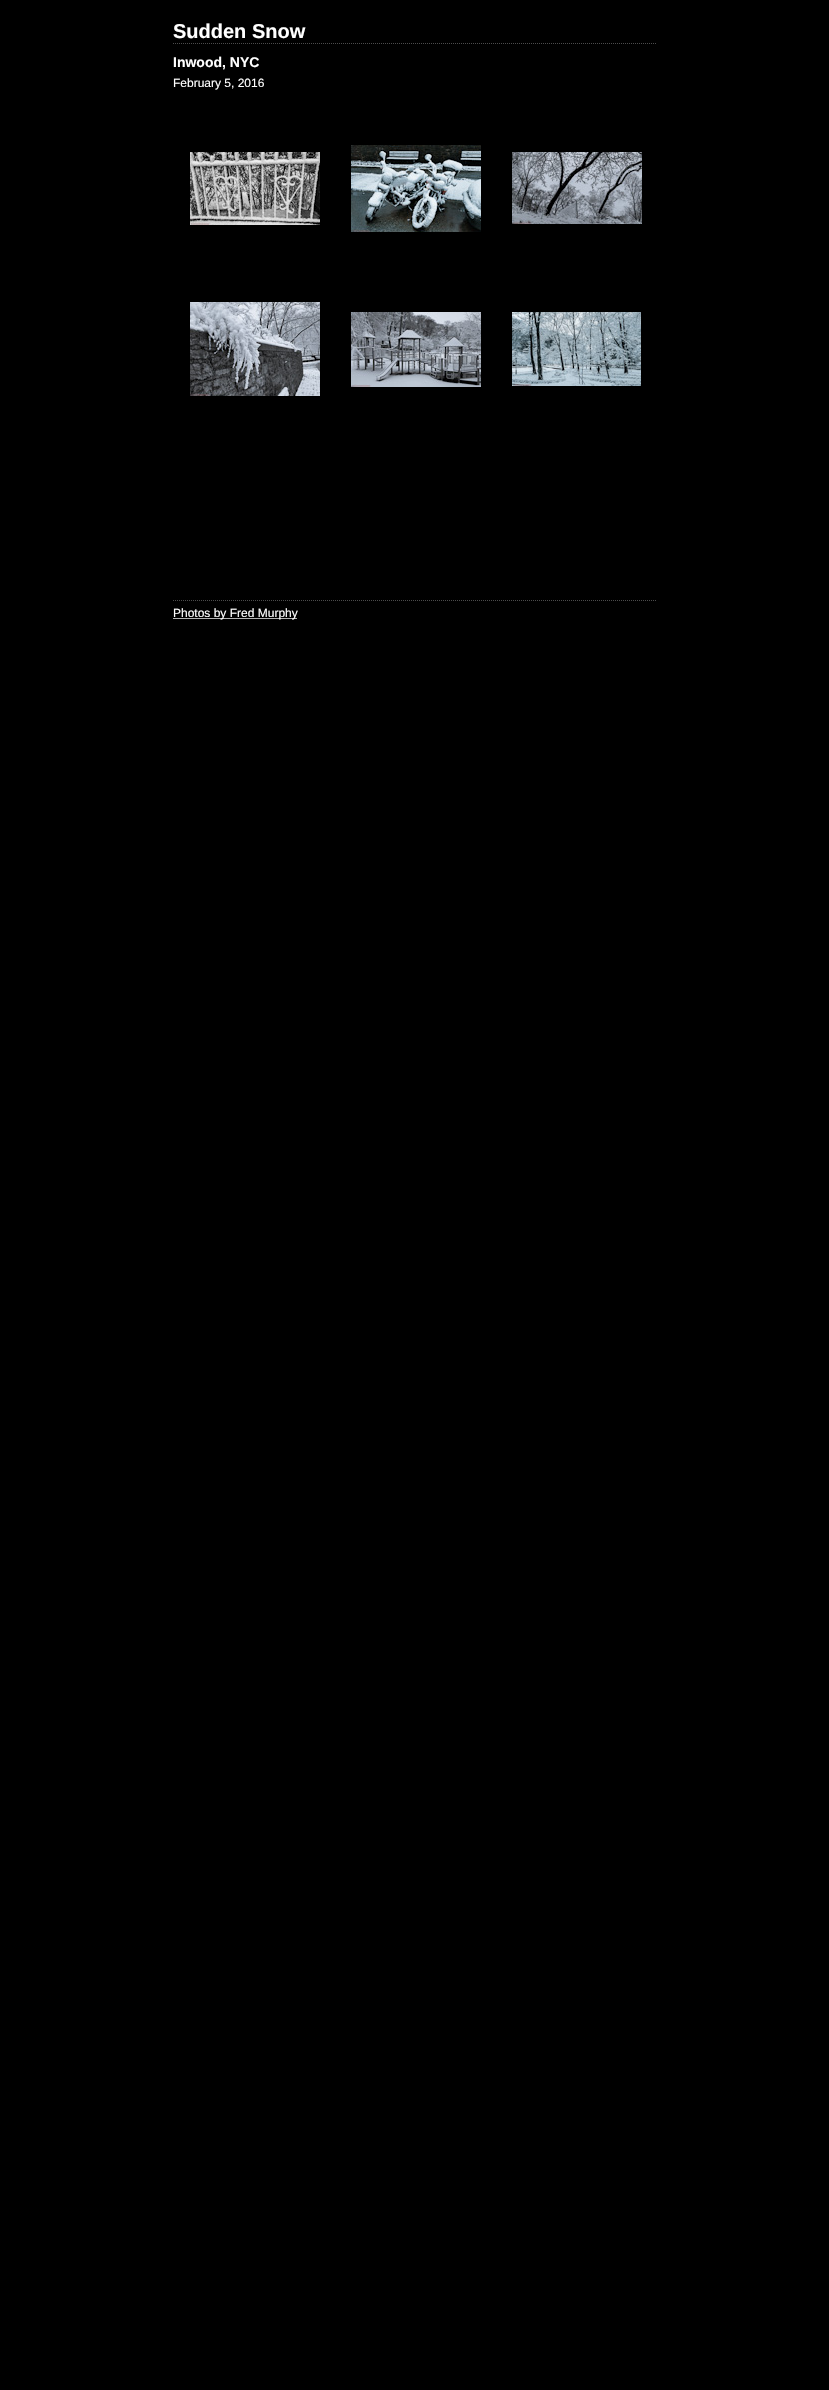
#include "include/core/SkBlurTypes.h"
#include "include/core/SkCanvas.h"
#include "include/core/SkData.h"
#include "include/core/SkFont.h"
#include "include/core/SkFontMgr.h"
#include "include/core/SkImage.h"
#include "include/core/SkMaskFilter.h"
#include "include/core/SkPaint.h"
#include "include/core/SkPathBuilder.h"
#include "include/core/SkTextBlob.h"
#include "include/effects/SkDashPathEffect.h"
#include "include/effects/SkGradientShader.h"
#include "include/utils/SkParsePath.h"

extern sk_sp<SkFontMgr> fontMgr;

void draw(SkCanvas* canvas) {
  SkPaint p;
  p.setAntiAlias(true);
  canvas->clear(SK_ColorBLACK);
  p.setStyle(SkPaint::kStroke_Style);
  p.setStrokeWidth(1);
  p.setColor(SkColorSetRGB(76, 76, 76));
  p.setPathEffect(SkDashPathEffect::Make({{1, 1}}, 0));
  canvas->drawPath(SkPathBuilder().moveTo(173, 43.5f).lineTo(657, 43.5f).detach(), p);
  p.setPathEffect(nullptr);
  p.setPathEffect(SkDashPathEffect::Make({{1, 1}}, 0));
  canvas->drawPath(SkPathBuilder().moveTo(173, 600.5f).lineTo(657, 600.5f).detach(), p);
  p.setPathEffect(nullptr);
  canvas->drawImageRect(SkImages::DeferredFromEncodedData(SkData::MakeFromFileName("images/1.png")), SkRect::MakeLTRB(190, 152, 320, 225), SkSamplingOptions());
  canvas->drawImageRect(SkImages::DeferredFromEncodedData(SkData::MakeFromFileName("images/2.png")), SkRect::MakeLTRB(351, 145, 481, 232), SkSamplingOptions());
  canvas->drawImageRect(SkImages::DeferredFromEncodedData(SkData::MakeFromFileName("images/3.png")), SkRect::MakeLTRB(512, 152, 642, 224), SkSamplingOptions());
  canvas->drawImageRect(SkImages::DeferredFromEncodedData(SkData::MakeFromFileName("images/4.png")), SkRect::MakeLTRB(190, 302, 320, 396), SkSamplingOptions());
  canvas->drawImageRect(SkImages::DeferredFromEncodedData(SkData::MakeFromFileName("images/5.png")), SkRect::MakeLTRB(351, 312, 481, 387), SkSamplingOptions());
  canvas->drawImageRect(SkImages::DeferredFromEncodedData(SkData::MakeFromFileName("images/6.png")), SkRect::MakeLTRB(512, 312, 641, 386), SkSamplingOptions());
  p.setStyle(SkPaint::kFill_Style);
  p.setColor(SkColorSetRGB(179, 179, 179));
  canvas->drawRect(SkRect::MakeLTRB(173, 618, 297, 619), p);
  SkFont font1(fontMgr->matchFamilyStyle("Liberation Sans", SkFontStyle::Bold()), 20);
  font1.setSubpixel(true);
  p.setColor(SK_ColorWHITE);
  canvas->drawString("Sudden Snow", 173, 38, font1, p);
  SkFont font2(fontMgr->matchFamilyStyle("Liberation Sans", SkFontStyle::Bold()), 14);
  font2.setSubpixel(true);
  canvas->drawString("Inwood, NYC", 173, 67, font2, p);
  SkFont font3(fontMgr->matchFamilyStyle("Liberation Sans", SkFontStyle::Normal()), 12);
  font3.setSubpixel(true);
  canvas->drawString("February 5, 2016", 173, 87, font3, p);
  canvas->drawString("Photos by Fred Murphy", 173, 617, font3, p);
}
